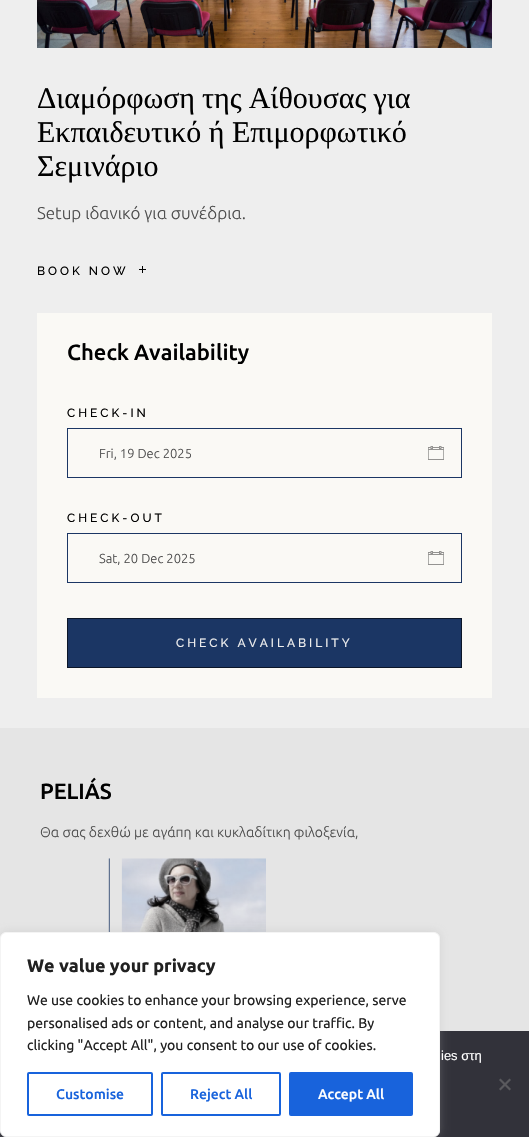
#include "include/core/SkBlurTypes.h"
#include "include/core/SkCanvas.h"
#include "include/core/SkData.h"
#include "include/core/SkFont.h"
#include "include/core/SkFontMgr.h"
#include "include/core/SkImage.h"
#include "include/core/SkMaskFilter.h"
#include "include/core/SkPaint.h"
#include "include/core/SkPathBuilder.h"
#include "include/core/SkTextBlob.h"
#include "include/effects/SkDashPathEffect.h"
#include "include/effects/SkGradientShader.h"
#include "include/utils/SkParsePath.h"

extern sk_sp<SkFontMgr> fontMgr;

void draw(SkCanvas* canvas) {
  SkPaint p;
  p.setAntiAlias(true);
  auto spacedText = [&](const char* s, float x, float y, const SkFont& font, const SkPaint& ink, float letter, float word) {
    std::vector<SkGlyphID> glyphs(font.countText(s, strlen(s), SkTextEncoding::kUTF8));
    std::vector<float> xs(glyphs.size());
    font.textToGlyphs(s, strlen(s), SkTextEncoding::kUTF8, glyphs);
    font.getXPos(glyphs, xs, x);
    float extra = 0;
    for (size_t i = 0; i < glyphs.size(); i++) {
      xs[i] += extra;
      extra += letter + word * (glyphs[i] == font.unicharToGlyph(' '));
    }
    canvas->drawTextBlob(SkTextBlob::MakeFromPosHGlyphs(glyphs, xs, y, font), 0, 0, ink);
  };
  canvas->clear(SkColorSetRGB(238, 238, 238));
  canvas->drawImageRect(SkImages::DeferredFromEncodedData(SkData::MakeFromFileName("images/1.png")), SkRect::MakeLTRB(37, 0, 492, 48), SkSamplingOptions());
  p.setColor(SK_ColorBLACK);
  canvas->drawRect(SkRect::MakeLTRB(139, 269, 146, 270), p);
  canvas->drawRect(SkRect::MakeLTRB(142, 266, 143, 273), p);
  p.setColor(SkColorSetRGB(250, 249, 245));
  canvas->drawRect(SkRect::MakeLTRB(37, 313, 492, 698), p);
  p.setStyle(SkPaint::kStroke_Style);
  p.setStrokeWidth(1);
  p.setColor(SkColorSetRGB(27, 54, 100));
  canvas->drawRect(SkRect::MakeLTRB(67.5f, 428.5f, 461.5f, 477.5f), p);
  canvas->drawImageRect(SkImages::DeferredFromEncodedData(SkData::MakeFromFileName("images/2.png")), SkRect::MakeLTRB(428, 446, 444, 460), SkSamplingOptions());
  canvas->drawRect(SkRect::MakeLTRB(67.5f, 533.5f, 461.5f, 582.5f), p);
  canvas->drawImageRect(SkImages::DeferredFromEncodedData(SkData::MakeFromFileName("images/2.png")), SkRect::MakeLTRB(428, 551, 444, 565), SkSamplingOptions());
  p.setStyle(SkPaint::kFill_Style);
  canvas->drawRect(SkRect::MakeLTRB(67.5f, 618.5f, 461.5f, 667.5f), p);
  p.setStyle(SkPaint::kStroke_Style);
  p.setColor(SkColorSetRGB(11, 22, 40));
  canvas->drawRect(SkRect::MakeLTRB(67.5f, 618.5f, 461.5f, 667.5f), p);
  p.setStyle(SkPaint::kFill_Style);
  p.setColor(SkColorSetRGB(229, 229, 229));
  canvas->drawRect(SkRect::MakeLTRB(0, 728, 529, 1031), p);
  canvas->drawImageRect(SkImages::DeferredFromEncodedData(SkData::MakeFromFileName("images/3.png")), SkRect::MakeLTRB(108, 858, 266, 932), SkSamplingOptions());
  p.setColor(SkColorSetRGB(50, 50, 58));
  canvas->drawRect(SkRect::MakeLTRB(0, 1031, 529, 1137), p);
  p.setColor(SkColorSetARGB(77, 172, 171, 171));
  p.setMaskFilter(SkMaskFilter::MakeBlur(kNormal_SkBlurStyle, 5));
  canvas->drawRoundRect(SkRect::MakeLTRB(0, 931, 440, 1136), 6, 6, p);
  p.setMaskFilter(nullptr);
  p.setColor(SK_ColorWHITE);
  canvas->drawRoundRect(SkRect::MakeLTRB(0.5f, 932.5f, 439.5f, 1136.5f), 5.5f, 5.5f, p);
  p.setStyle(SkPaint::kStroke_Style);
  p.setColor(SkColorSetRGB(244, 244, 244));
  canvas->drawRoundRect(SkRect::MakeLTRB(0.5f, 932.5f, 439.5f, 1136.5f), 5.5f, 5.5f, p);
  p.setStrokeWidth(2);
  p.setColor(SkColorSetRGB(24, 99, 220));
  canvas->drawRoundRect(SkRect::MakeLTRB(28, 1073, 152, 1115), 1, 1, p);
  canvas->drawRoundRect(SkRect::MakeLTRB(162, 1073, 280, 1115), 1, 1, p);
  p.setStyle(SkPaint::kFill_Style);
  canvas->drawRoundRect(SkRect::MakeLTRB(290, 1073, 412, 1115), 1, 1, p);
  p.setStyle(SkPaint::kStroke_Style);
  canvas->drawRoundRect(SkRect::MakeLTRB(290, 1073, 412, 1115), 1, 1, p);
  p.setStyle(SkPaint::kFill_Style);
  p.setColor(SkColorSetRGB(89, 89, 93));
  canvas->drawPath(SkPathBuilder().moveTo(509.5f, 1078.5f).lineTo(511, 1080).lineTo(500.5f, 1090.5f).lineTo(499, 1089).close().detach(), p);
  canvas->drawPath(SkPathBuilder().moveTo(499, 1080).lineTo(500.5f, 1078.5f).lineTo(511, 1089).lineTo(509.5f, 1090.5f).close().detach(), p);
  SkFont font1(fontMgr->matchFamilyStyle("Liberation Serif", SkFontStyle::Normal()), 30);
  font1.setSubpixel(true);
  p.setColor(SK_ColorBLACK);
  spacedText("Διαμόρφωση της Αίθουσας για", 37, 108, font1, p, 0, -0.5f);
  canvas->drawString("Εκπαιδευτικό ή Επιμορφωτικό", 37, 142, font1, p);
  canvas->drawString("Σεμινάριο", 37, 176, font1, p);
  SkFont font2(fontMgr->matchFamilyStyle("Ubuntu", SkFontStyle(300, SkFontStyle::kNormal_Width, SkFontStyle::kUpright_Slant)), 17);
  font2.setSubpixel(true);
  p.setColor(SkColorSetRGB(77, 77, 77));
  canvas->drawString("Setup ιδανικό για συνέδρια.", 37, 219, font2, p);
  SkFont font3(fontMgr->matchFamilyStyle("Raleway", SkFontStyle(500, SkFontStyle::kNormal_Width, SkFontStyle::kUpright_Slant)), 12);
  font3.setSubpixel(true);
  p.setColor(SK_ColorBLACK);
  spacedText("BOOK NOW", 37, 275, font3, p, 3, 0);
  SkFont font4(fontMgr->matchFamilyStyle("Ubuntu", SkFontStyle(500, SkFontStyle::kNormal_Width, SkFontStyle::kUpright_Slant)), 22);
  font4.setSubpixel(true);
  canvas->drawString("Check Availability", 67, 360, font4, p);
  spacedText("CHECK-IN", 67, 417, font3, p, 3, 0);
  SkFont font5(fontMgr->matchFamilyStyle("Ubuntu", SkFontStyle(300, SkFontStyle::kNormal_Width, SkFontStyle::kUpright_Slant)), 13);
  font5.setSubpixel(true);
  p.setColor(SkColorSetRGB(77, 77, 77));
  canvas->drawString("Fri, 19 Dec 2025", 99, 458, font5, p);
  p.setColor(SK_ColorBLACK);
  spacedText("CHECK-OUT", 67, 522, font3, p, 3, 0);
  p.setColor(SkColorSetRGB(77, 77, 77));
  canvas->drawString("Sat, 20 Dec 2025", 99, 563, font5, p);
  p.setColor(SkColorSetRGB(238, 238, 238));
  spacedText("CHECK AVAILABILITY", 176, 647, font3, p, 3, 0);
  p.setColor(SK_ColorBLACK);
  canvas->drawString("PELIÁS", 40, 799, font4, p);
  SkFont font6(fontMgr->matchFamilyStyle("Ubuntu", SkFontStyle(300, SkFontStyle::kNormal_Width, SkFontStyle::kUpright_Slant)), 14);
  font6.setSubpixel(true);
  p.setColor(SkColorSetRGB(77, 77, 77));
  canvas->drawString("Θα σας δεχθώ με αγάπη και κυκλαδίτικη φιλοξενία,", 40, 837, font6, p);
  SkFont font7(fontMgr->matchFamilyStyle("Ubuntu", SkFontStyle::Bold()), 18);
  font7.setSubpixel(true);
  p.setColor(SkColorSetRGB(33, 33, 33));
  canvas->drawString("We value your privacy", 27, 972, font7, p);
  SkFont font8(fontMgr->matchFamilyStyle("Ubuntu", SkFontStyle::Normal()), 14);
  font8.setSubpixel(true);
  canvas->drawString("We use cookies to enhance your browsing experience, serve", 27, 1005, font8, p);
  canvas->drawString("personalised ads or content, and analyse our traffic. By", 27, 1028, font8, p);
  canvas->drawString("clicking \"Accept All\", you consent to our use of cookies.", 27, 1050, font8, p);
  SkFont font9(fontMgr->matchFamilyStyle("Ubuntu", SkFontStyle(500, SkFontStyle::kNormal_Width, SkFontStyle::kUpright_Slant)), 14);
  font9.setSubpixel(true);
  p.setColor(SkColorSetRGB(24, 99, 220));
  canvas->drawString("Customise", 56, 1099, font9, p);
  canvas->drawString("Reject All", 190, 1099, font9, p);
  p.setColor(SK_ColorWHITE);
  canvas->drawString("Accept All", 318, 1099, font9, p);
  SkFont font10(fontMgr->matchFamilyStyle("Liberation Sans", SkFontStyle::Normal()), 13);
  font10.setSubpixel(true);
  canvas->drawString("ies στη", 441, 1060, font10, p);
}
